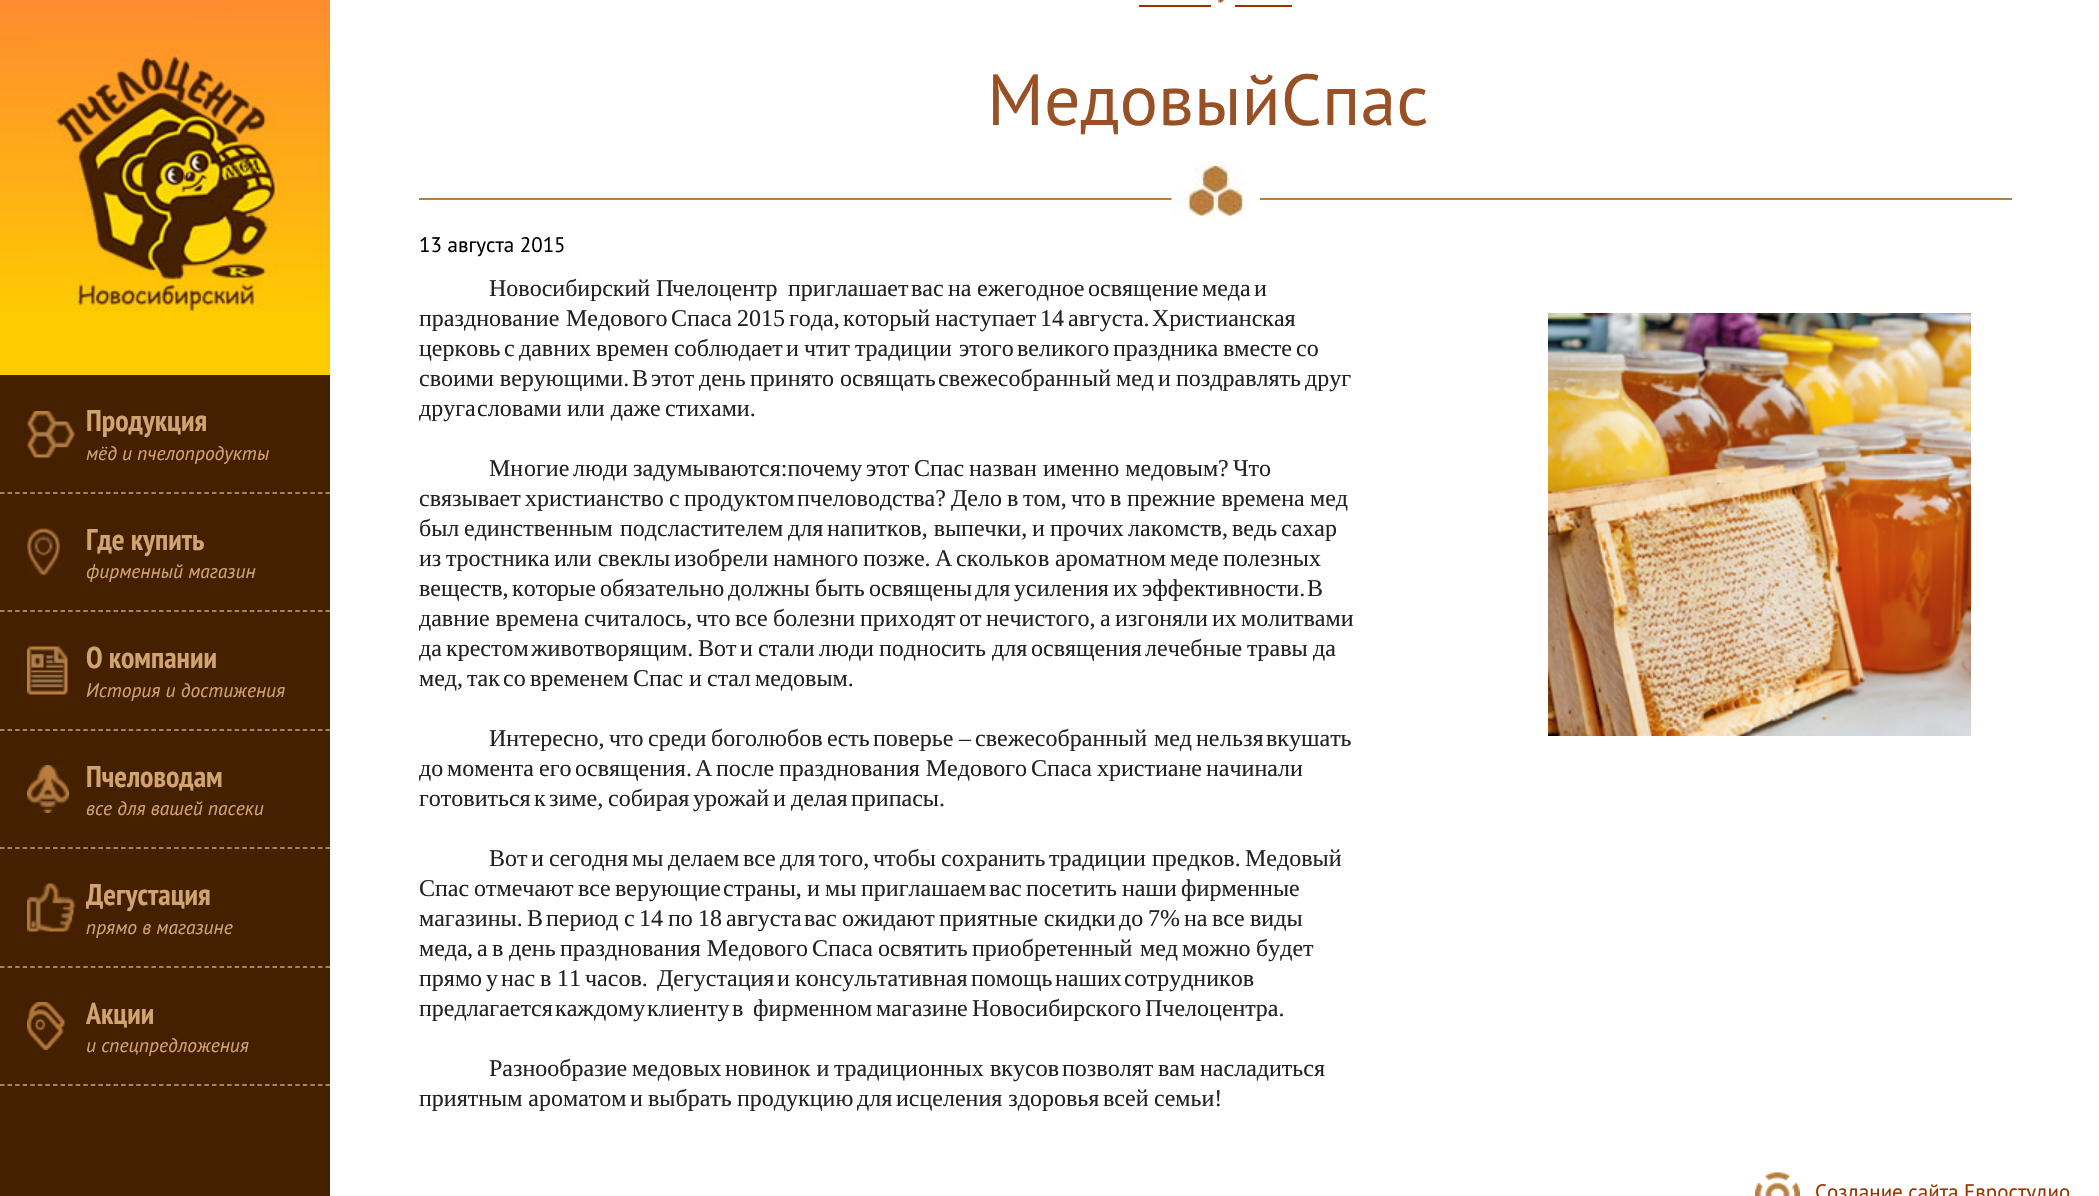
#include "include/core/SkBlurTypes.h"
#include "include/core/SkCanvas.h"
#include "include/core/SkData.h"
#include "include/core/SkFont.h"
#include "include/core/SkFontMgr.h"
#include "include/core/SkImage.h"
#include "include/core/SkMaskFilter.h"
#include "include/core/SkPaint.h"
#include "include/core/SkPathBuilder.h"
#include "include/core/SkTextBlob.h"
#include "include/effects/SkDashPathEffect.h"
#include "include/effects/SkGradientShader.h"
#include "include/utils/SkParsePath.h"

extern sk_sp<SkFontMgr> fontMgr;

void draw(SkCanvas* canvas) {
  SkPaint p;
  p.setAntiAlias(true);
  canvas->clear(SK_ColorWHITE);
  p.setColor(SkColorSetRGB(68, 31, 0));
  canvas->drawRect(SkRect::MakeLTRB(0, 375, 330, 1196), p);
  canvas->drawImageRect(SkImages::DeferredFromEncodedData(SkData::MakeFromFileName("images/1.png")), SkRect::MakeLTRB(0, 0, 330, 375), SkSamplingOptions());
  p.setStyle(SkPaint::kStroke_Style);
  p.setStrokeWidth(1.5f);
  p.setColor(SkColorSetRGB(208, 163, 113));
  p.setPathEffect(SkDashPathEffect::Make({{4.5f, 3.07f}}, 0));
  canvas->drawPath(SkPathBuilder().moveTo(0, 493).lineTo(330, 493).detach(), p);
  p.setPathEffect(nullptr);
  canvas->drawImageRect(SkImages::DeferredFromEncodedData(SkData::MakeFromFileName("images/2.png")), SkRect::MakeLTRB(27, 411, 75, 458), SkSamplingOptions());
  p.setPathEffect(SkDashPathEffect::Make({{4.5f, 3.07f}}, 0));
  canvas->drawPath(SkPathBuilder().moveTo(0, 611).lineTo(330, 611).detach(), p);
  p.setPathEffect(nullptr);
  canvas->drawImageRect(SkImages::DeferredFromEncodedData(SkData::MakeFromFileName("images/3.png")), SkRect::MakeLTRB(27, 528, 60, 576), SkSamplingOptions());
  p.setPathEffect(SkDashPathEffect::Make({{4.5f, 3.07f}}, 0));
  canvas->drawPath(SkPathBuilder().moveTo(0, 730).lineTo(330, 730).detach(), p);
  p.setPathEffect(nullptr);
  canvas->drawImageRect(SkImages::DeferredFromEncodedData(SkData::MakeFromFileName("images/4.png")), SkRect::MakeLTRB(27, 646, 68, 695), SkSamplingOptions());
  p.setPathEffect(SkDashPathEffect::Make({{4.5f, 3.07f}}, 0));
  canvas->drawPath(SkPathBuilder().moveTo(0, 848).lineTo(330, 848).detach(), p);
  p.setPathEffect(nullptr);
  canvas->drawImageRect(SkImages::DeferredFromEncodedData(SkData::MakeFromFileName("images/5.png")), SkRect::MakeLTRB(27, 765, 69, 813), SkSamplingOptions());
  p.setPathEffect(SkDashPathEffect::Make({{4.5f, 3.07f}}, 0));
  canvas->drawPath(SkPathBuilder().moveTo(0, 967).lineTo(330, 967).detach(), p);
  p.setPathEffect(nullptr);
  canvas->drawImageRect(SkImages::DeferredFromEncodedData(SkData::MakeFromFileName("images/6.png")), SkRect::MakeLTRB(27, 883, 75, 932), SkSamplingOptions());
  p.setPathEffect(SkDashPathEffect::Make({{4.5f, 3.07f}}, 0));
  canvas->drawPath(SkPathBuilder().moveTo(0, 1085).lineTo(330, 1085).detach(), p);
  p.setPathEffect(nullptr);
  canvas->drawImageRect(SkImages::DeferredFromEncodedData(SkData::MakeFromFileName("images/7.png")), SkRect::MakeLTRB(27, 1002, 65, 1050), SkSamplingOptions());
  canvas->drawImageRect(SkImages::DeferredFromEncodedData(SkData::MakeFromFileName("images/8.png")), SkRect::MakeLTRB(1218, 0, 1225, 3), SkSamplingOptions());
  p.setStyle(SkPaint::kFill_Style);
  p.setColor(SkColorSetRGB(153, 51, 0));
  canvas->drawRect(SkRect::MakeLTRB(1139, 5, 1211, 7), p);
  canvas->drawRect(SkRect::MakeLTRB(1235, 5, 1292, 7), p);
  p.setColor(SkColorSetRGB(184, 126, 61));
  canvas->drawRect(SkRect::MakeLTRB(419, 198, 2012, 200), p);
  canvas->drawImageRect(SkImages::DeferredFromEncodedData(SkData::MakeFromFileName("images/9.png")), SkRect::MakeLTRB(1171, 166, 1260, 216), SkSamplingOptions());
  canvas->drawImageRect(SkImages::DeferredFromEncodedData(SkData::MakeFromFileName("images/10.png")), SkRect::MakeLTRB(1548, 313, 1971, 736), SkSamplingOptions());
  canvas->drawImageRect(SkImages::DeferredFromEncodedData(SkData::MakeFromFileName("images/11.png")), SkRect::MakeLTRB(1755, 1172, 1800, 1196), SkSamplingOptions());
  SkFont font1(fontMgr->matchFamilyStyle("PT Sans Narrow", SkFontStyle::Bold()), 30);
  font1.setSubpixel(true);
  p.setColor(SkColorSetRGB(208, 163, 113));
  canvas->drawString("Продукция", 86, 431, font1, p);
  SkFont font2(fontMgr->matchFamilyStyle("PT Sans", SkFontStyle::Italic()), 19.5f);
  font2.setSubpixel(true);
  canvas->drawString("мёд и пчелопродукты", 86, 460, font2, p);
  canvas->drawString("Где купить", 86, 550, font1, p);
  canvas->drawString("фирменный магазин", 86, 578, font2, p);
  canvas->drawString("О компании", 86, 668, font1, p);
  canvas->drawString("История и достижения", 86, 697, font2, p);
  canvas->drawString("Пчеловодам", 86, 787, font1, p);
  canvas->drawString("все для вашей пасеки", 86, 815, font2, p);
  canvas->drawString("Дегустация", 86, 905, font1, p);
  canvas->drawString("прямо в магазине", 86, 934, font2, p);
  canvas->drawString("Акции", 86, 1024, font1, p);
  canvas->drawString("и спецпредложения", 86, 1052, font2, p);
  SkFont font3(fontMgr->matchFamilyStyle("PT Sans", SkFontStyle::Normal()), 72);
  font3.setSubpixel(true);
  p.setColor(SkColorSetRGB(153, 80, 37));
  canvas->drawString("Медовый Спас", 987, 125, font3, p);
  SkFont font4(fontMgr->matchFamilyStyle("PT Sans", SkFontStyle::Normal()), 21);
  font4.setSubpixel(true);
  p.setColor(SK_ColorBLACK);
  canvas->drawString("13 августа 2015", 419, 252, font4, p);
  SkFont font5(fontMgr->matchFamilyStyle("Liberation Serif", SkFontStyle::Normal()), 24);
  font5.setSubpixel(true);
  p.setColor(SkColorSetRGB(34, 34, 34));
  canvas->drawString("Новосибирский", 489, 296, font5, p);
  canvas->drawString("П", 656, 296, font5, p);
  canvas->drawString("челоцентр", 672, 296, font5, p);
  canvas->drawString("приглашает", 788, 296, font5, p);
  canvas->drawString("вас", 911, 296, font5, p);
  canvas->drawString("на", 948, 296, font5, p);
  canvas->drawString("ежегодное", 977, 296, font5, p);
  canvas->drawString("освящение", 1088, 296, font5, p);
  canvas->drawString("меда", 1202, 296, font5, p);
  canvas->drawString("и", 1254, 296, font5, p);
  canvas->drawString("празднование", 419, 326, font5, p);
  canvas->drawString("Медового", 566, 326, font5, p);
  canvas->drawString("Спаса", 671, 326, font5, p);
  canvas->drawString("2015", 737, 326, font5, p);
  canvas->drawString("года,", 789, 326, font5, p);
  canvas->drawString("который", 843, 326, font5, p);
  canvas->drawString("наступает", 935, 326, font5, p);
  canvas->drawString("14", 1040, 326, font5, p);
  canvas->drawString("августа.", 1068, 326, font5, p);
  canvas->drawString("Христианская", 1152, 326, font5, p);
  canvas->drawString("церковь", 419, 356, font5, p);
  canvas->drawString("с", 504, 356, font5, p);
  canvas->drawString("давних", 519, 356, font5, p);
  canvas->drawString("времен", 596, 356, font5, p);
  canvas->drawString("соблюдает", 674, 356, font5, p);
  canvas->drawString("и", 786, 356, font5, p);
  canvas->drawString("чтит", 804, 356, font5, p);
  canvas->drawString("традиции", 855, 356, font5, p);
  canvas->drawString("этого", 959, 356, font5, p);
  canvas->drawString("великого", 1017, 356, font5, p);
  canvas->drawString("праздника", 1113, 356, font5, p);
  canvas->drawString("вместе", 1223, 356, font5, p);
  canvas->drawString("со", 1296, 356, font5, p);
  canvas->drawString("своими верующими.", 419, 386, font5, p);
  canvas->drawString("В", 632, 386, font5, p);
  canvas->drawString("этот", 651, 386, font5, p);
  canvas->drawString("день", 699, 386, font5, p);
  canvas->drawString("принято освящать", 750, 386, font5, p);
  canvas->drawString("свежесобранн", 938, 386, font5, p);
  canvas->drawString("ый", 1082, 386, font5, p);
  canvas->drawString("мед", 1116, 386, font5, p);
  canvas->drawString("и", 1158, 386, font5, p);
  canvas->drawString("поздравлять", 1176, 386, font5, p);
  canvas->drawString("друг", 1305, 386, font5, p);
  canvas->drawString("друга", 419, 416, font5, p);
  canvas->drawString("словами", 477, 416, font5, p);
  canvas->drawString("или даже", 567, 416, font5, p);
  canvas->drawString("стихами.", 665, 416, font5, p);
  canvas->drawString("Мн", 489, 476, font5, p);
  canvas->drawString("огие", 524, 476, font5, p);
  canvas->drawString("люди", 573, 476, font5, p);
  canvas->drawString("задумываются:почему", 633, 476, font5, p);
  canvas->drawString("этот", 866, 476, font5, p);
  canvas->drawString("С", 914, 476, font5, p);
  canvas->drawString("пас", 930, 476, font5, p);
  canvas->drawString("назван", 969, 476, font5, p);
  canvas->drawString("именно медовым?", 1043, 476, font5, p);
  canvas->drawString("Что", 1233, 476, font5, p);
  canvas->drawString("связывает", 419, 506, font5, p);
  canvas->drawString("христианство", 525, 506, font5, p);
  canvas->drawString("с", 669, 506, font5, p);
  canvas->drawString("продуктом", 684, 506, font5, p);
  canvas->drawString("пчеловодства?", 797, 506, font5, p);
  canvas->drawString("Дело", 951, 506, font5, p);
  canvas->drawString("в", 1007, 506, font5, p);
  canvas->drawString("том,", 1023, 506, font5, p);
  canvas->drawString("что", 1071, 506, font5, p);
  canvas->drawString("в", 1110, 506, font5, p);
  canvas->drawString("прежние времена", 1127, 506, font5, p);
  canvas->drawString("мед", 1310, 506, font5, p);
  canvas->drawString("был", 419, 536, font5, p);
  canvas->drawString("единственным", 464, 536, font5, p);
  canvas->drawString("подсластителем", 620, 536, font5, p);
  canvas->drawString("для", 788, 536, font5, p);
  canvas->drawString("напитков, выпечки,", 827, 536, font5, p);
  canvas->drawString("и", 1032, 536, font5, p);
  canvas->drawString("прочих", 1050, 536, font5, p);
  canvas->drawString("лакомств,", 1128, 536, font5, p);
  canvas->drawString("ведь", 1232, 536, font5, p);
  canvas->drawString("сахар", 1281, 536, font5, p);
  canvas->drawString("из", 419, 566, font5, p);
  canvas->drawString("тростника", 446, 566, font5, p);
  canvas->drawString("или свеклы", 554, 566, font5, p);
  canvas->drawString("изобрели", 674, 566, font5, p);
  canvas->drawString("намного", 773, 566, font5, p);
  canvas->drawString("позже.", 863, 566, font5, p);
  canvas->drawString("А", 935, 566, font5, p);
  canvas->drawString("сколько", 956, 566, font5, p);
  canvas->drawString("в", 1038, 566, font5, p);
  canvas->drawString("ароматном", 1055, 566, font5, p);
  canvas->drawString("меде", 1170, 566, font5, p);
  canvas->drawString("полезных", 1223, 566, font5, p);
  canvas->drawString("веществ,", 419, 596, font5, p);
  canvas->drawString("кото", 512, 596, font5, p);
  canvas->drawString("рые", 557, 596, font5, p);
  canvas->drawString("обязательно", 600, 596, font5, p);
  canvas->drawString("должны", 728, 596, font5, p);
  canvas->drawString("быть", 815, 596, font5, p);
  canvas->drawString("освящены", 869, 596, font5, p);
  canvas->drawString("для", 975, 596, font5, p);
  canvas->drawString("усиления", 1014, 596, font5, p);
  canvas->drawString("их", 1113, 596, font5, p);
  canvas->drawString("эффективности.", 1142, 596, font5, p);
  canvas->drawString("В", 1307, 596, font5, p);
  canvas->drawString("давние времена", 419, 626, font5, p);
  canvas->drawString("считалось,", 584, 626, font5, p);
  canvas->drawString("что", 696, 626, font5, p);
  canvas->drawString("все", 735, 626, font5, p);
  canvas->drawString("болезни", 773, 626, font5, p);
  canvas->drawString("приходят", 860, 626, font5, p);
  canvas->drawString("от", 959, 626, font5, p);
  canvas->drawString("нечистого,", 986, 626, font5, p);
  canvas->drawString("а", 1100, 626, font5, p);
  canvas->drawString("изгоняли", 1115, 626, font5, p);
  canvas->drawString("их", 1212, 626, font5, p);
  canvas->drawString("молитвами", 1241, 626, font5, p);
  canvas->drawString("да", 419, 656, font5, p);
  canvas->drawString("крестом", 446, 656, font5, p);
  canvas->drawString("животворящим.", 531, 656, font5, p);
  canvas->drawString("Вот", 698, 656, font5, p);
  canvas->drawString("и", 740, 656, font5, p);
  canvas->drawString("стали", 758, 656, font5, p);
  canvas->drawString("люди", 819, 656, font5, p);
  canvas->drawString("подносить", 879, 656, font5, p);
  canvas->drawString("для", 992, 656, font5, p);
  canvas->drawString("освящения", 1031, 656, font5, p);
  canvas->drawString("лечебные", 1145, 656, font5, p);
  canvas->drawString("травы", 1247, 656, font5, p);
  canvas->drawString("да", 1313, 656, font5, p);
  canvas->drawString("мед,", 419, 686, font5, p);
  canvas->drawString("так", 467, 686, font5, p);
  canvas->drawString("со", 503, 686, font5, p);
  canvas->drawString("временем", 530, 686, font5, p);
  canvas->drawString("Спас", 633, 686, font5, p);
  canvas->drawString("и", 689, 686, font5, p);
  canvas->drawString("стал", 707, 686, font5, p);
  canvas->drawString("медовым.", 755, 686, font5, p);
  canvas->drawString("Интересно,", 489, 746, font5, p);
  canvas->drawString("что", 609, 746, font5, p);
  canvas->drawString("среди", 648, 746, font5, p);
  canvas->drawString("боголюбов", 711, 746, font5, p);
  canvas->drawString("есть", 827, 746, font5, p);
  canvas->drawString("поверье", 873, 746, font5, p);
  canvas->drawString("–", 959, 746, font5, p);
  canvas->drawString("свежесобранный", 975, 746, font5, p);
  canvas->drawString("мед", 1154, 746, font5, p);
  canvas->drawString("не", 1196, 746, font5, p);
  canvas->drawString("льзя", 1220, 746, font5, p);
  canvas->drawString("вкушать", 1266, 746, font5, p);
  canvas->drawString("до", 419, 776, font5, p);
  canvas->drawString("момента", 447, 776, font5, p);
  canvas->drawString("его", 539, 776, font5, p);
  canvas->drawString("освящения.", 575, 776, font5, p);
  canvas->drawString("А", 695, 776, font5, p);
  canvas->drawString("после", 716, 776, font5, p);
  canvas->drawString("празднования Медового", 779, 776, font5, p);
  canvas->drawString("Спаса", 1031, 776, font5, p);
  canvas->drawString("христиане", 1097, 776, font5, p);
  canvas->drawString("начинали", 1206, 776, font5, p);
  canvas->drawString("готовиться", 419, 806, font5, p);
  canvas->drawString("к", 534, 806, font5, p);
  canvas->drawString("зиме,", 549, 806, font5, p);
  canvas->drawString("собирая", 608, 806, font5, p);
  canvas->drawString("урожай", 693, 806, font5, p);
  canvas->drawString("и", 773, 806, font5, p);
  canvas->drawString("делая", 791, 806, font5, p);
  canvas->drawString("припасы.", 851, 806, font5, p);
  canvas->drawString("Вот", 489, 866, font5, p);
  canvas->drawString("и", 531, 866, font5, p);
  canvas->drawString("сегодня", 549, 866, font5, p);
  canvas->drawString("мы", 632, 866, font5, p);
  canvas->drawString("делаем", 668, 866, font5, p);
  canvas->drawString("все", 743, 866, font5, p);
  canvas->drawString("для", 780, 866, font5, p);
  canvas->drawString("того,", 819, 866, font5, p);
  canvas->drawString("чтобы", 873, 866, font5, p);
  canvas->drawString("сохранить", 941, 866, font5, p);
  canvas->drawString("традиции", 1049, 866, font5, p);
  canvas->drawString("предков.", 1152, 866, font5, p);
  canvas->drawString("Медовый", 1245, 866, font5, p);
  canvas->drawString("Спас", 419, 896, font5, p);
  canvas->drawString("отмечают", 474, 896, font5, p);
  canvas->drawString("все", 578, 896, font5, p);
  canvas->drawString("верующие", 615, 896, font5, p);
  canvas->drawString("страны,", 723, 896, font5, p);
  canvas->drawString("и", 807, 896, font5, p);
  canvas->drawString("мы", 825, 896, font5, p);
  canvas->drawString("приглашаем", 861, 896, font5, p);
  canvas->drawString("вас", 989, 896, font5, p);
  canvas->drawString("посетить", 1026, 896, font5, p);
  canvas->drawString("наши", 1122, 896, font5, p);
  canvas->drawString("фирменные", 1181, 896, font5, p);
  canvas->drawString("магазины.", 419, 926, font5, p);
  canvas->drawString("В", 527, 926, font5, p);
  canvas->drawString("период", 546, 926, font5, p);
  canvas->drawString("с", 624, 926, font5, p);
  canvas->drawString("14", 639, 926, font5, p);
  canvas->drawString("по", 668, 926, font5, p);
  canvas->drawString("18", 698, 926, font5, p);
  canvas->drawString("августа", 726, 926, font5, p);
  canvas->drawString("вас", 804, 926, font5, p);
  canvas->drawString("ожидают", 842, 926, font5, p);
  canvas->drawString("приятные скидки", 939, 926, font5, p);
  canvas->drawString("до", 1119, 926, font5, p);
  canvas->drawString("7%", 1148, 926, font5, p);
  canvas->drawString("на", 1184, 926, font5, p);
  canvas->drawString("все", 1212, 926, font5, p);
  canvas->drawString("виды", 1250, 926, font5, p);
  canvas->drawString("меда", 419, 956, font5, p);
  canvas->drawString(",", 467, 956, font5, p);
  canvas->drawString("а", 477, 956, font5, p);
  canvas->drawString("в", 492, 956, font5, p);
  canvas->drawString("день", 509, 956, font5, p);
  canvas->drawString("празднования Медового", 560, 956, font5, p);
  canvas->drawString("Спаса", 812, 956, font5, p);
  canvas->drawString("освятить", 878, 956, font5, p);
  canvas->drawString("приобретенный", 972, 956, font5, p);
  canvas->drawString("мед", 1140, 956, font5, p);
  canvas->drawString("можно", 1182, 956, font5, p);
  canvas->drawString("будет", 1256, 956, font5, p);
  canvas->drawString("прямо", 419, 986, font5, p);
  canvas->drawString("у", 486, 986, font5, p);
  canvas->drawString("нас", 501, 986, font5, p);
  canvas->drawString("в", 540, 986, font5, p);
  canvas->drawString("11", 557, 986, font5, p);
  canvas->drawString("часов.", 585, 986, font5, p);
  canvas->drawString("Дегустация", 657, 986, font5, p);
  canvas->drawString("и", 777, 986, font5, p);
  canvas->drawString("консультативная", 795, 986, font5, p);
  canvas->drawString("помощь", 971, 986, font5, p);
  canvas->drawString("наших", 1055, 986, font5, p);
  canvas->drawString("сотрудников", 1124, 986, font5, p);
  canvas->drawString("предлагается", 419, 1016, font5, p);
  canvas->drawString("каждому", 555, 1016, font5, p);
  canvas->drawString("клиенту", 647, 1016, font5, p);
  canvas->drawString("в", 732, 1016, font5, p);
  canvas->drawString("фирменн", 753, 1016, font5, p);
  canvas->drawString("ом", 845, 1016, font5, p);
  canvas->drawString("магазин", 876, 1016, font5, p);
  canvas->drawString("е", 957, 1016, font5, p);
  canvas->drawString("Новосибирского", 972, 1016, font5, p);
  canvas->drawString("Пчелоцентра.", 1145, 1016, font5, p);
  canvas->drawString("Разнообразие", 489, 1076, font5, p);
  canvas->drawString("медовых", 632, 1076, font5, p);
  canvas->drawString("новинок и", 725, 1076, font5, p);
  canvas->drawString("традиционных", 834, 1076, font5, p);
  canvas->drawString("вкусов", 990, 1076, font5, p);
  canvas->drawString("позволят", 1062, 1076, font5, p);
  canvas->drawString("вам", 1158, 1076, font5, p);
  canvas->drawString("насладиться", 1200, 1076, font5, p);
  canvas->drawString("приятным ароматом", 419, 1106, font5, p);
  canvas->drawString("и", 630, 1106, font5, p);
  canvas->drawString("выбрать", 648, 1106, font5, p);
  canvas->drawString("продукцию", 737, 1106, font5, p);
  canvas->drawString("для", 857, 1106, font5, p);
  canvas->drawString("исцеления здоровья", 896, 1106, font5, p);
  canvas->drawString("всей", 1103, 1106, font5, p);
  canvas->drawString("семьи!", 1154, 1106, font5, p);
  p.setColor(SkColorSetRGB(153, 51, 0));
  canvas->drawString("Создание сайта Евростудио", 1815, 1199, font4, p);
}
